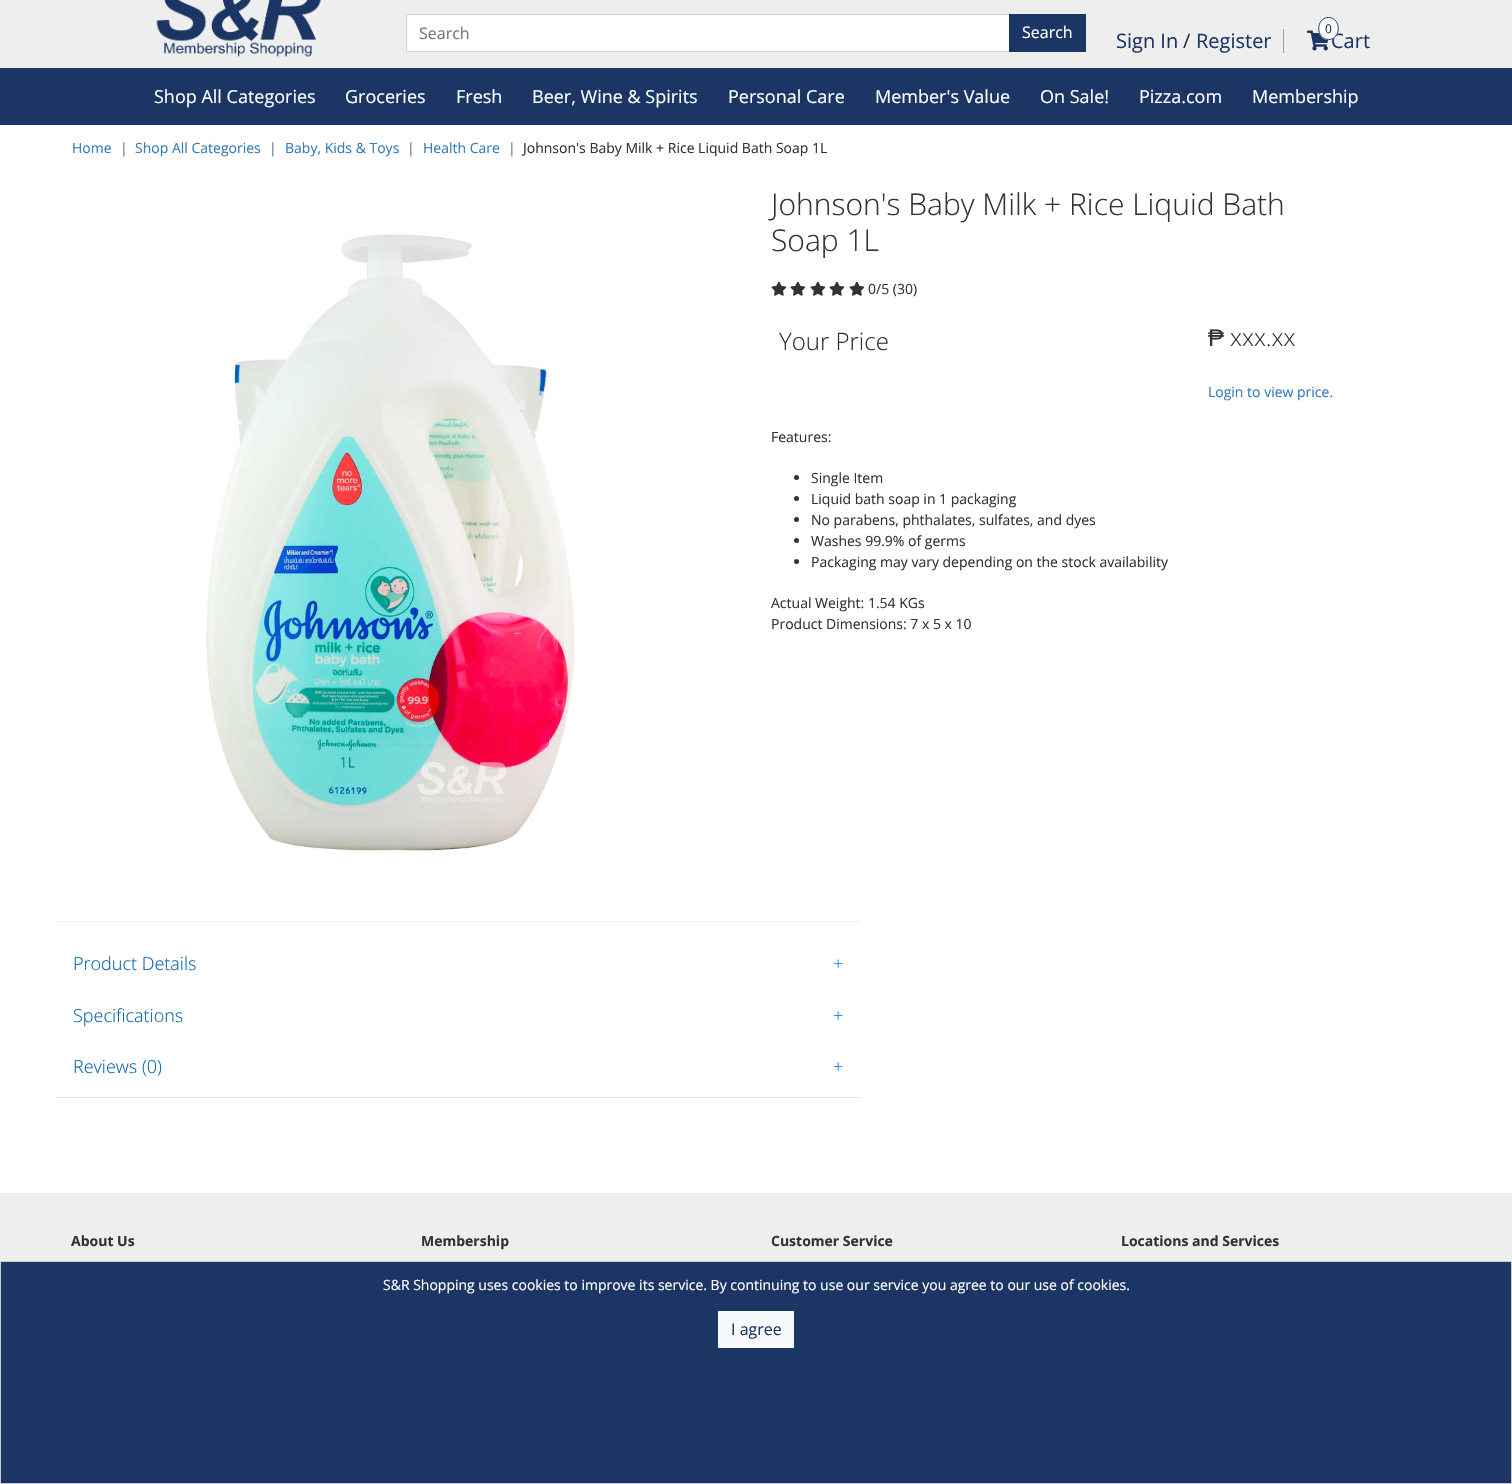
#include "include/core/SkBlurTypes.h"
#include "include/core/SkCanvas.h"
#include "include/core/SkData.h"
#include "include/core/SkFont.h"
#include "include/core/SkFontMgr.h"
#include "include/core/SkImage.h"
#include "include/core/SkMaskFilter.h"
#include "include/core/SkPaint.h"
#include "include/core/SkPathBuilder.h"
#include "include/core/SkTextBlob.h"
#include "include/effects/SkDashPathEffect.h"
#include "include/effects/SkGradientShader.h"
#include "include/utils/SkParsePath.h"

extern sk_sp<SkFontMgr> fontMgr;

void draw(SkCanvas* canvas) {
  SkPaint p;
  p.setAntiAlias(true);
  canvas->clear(SK_ColorWHITE);
  p.setColor(SkColorSetRGB(238, 238, 238));
  canvas->drawRect(SkRect::MakeLTRB(0, 0, 1512, 68), p);
  canvas->drawImageRect(SkImages::DeferredFromEncodedData(SkData::MakeFromFileName("images/1.png")), SkRect::MakeLTRB(156, 0, 321, 57), SkSamplingOptions());
  p.setColor(SK_ColorWHITE);
  canvas->drawRect(SkRect::MakeLTRB(406.5f, 14.5f, 1009.5f, 51.5f), p);
  p.setStyle(SkPaint::kStroke_Style);
  p.setStrokeWidth(1);
  p.setColor(SkColorSetRGB(206, 212, 218));
  canvas->drawRect(SkRect::MakeLTRB(406.5f, 14.5f, 1009.5f, 51.5f), p);
  p.setStyle(SkPaint::kFill_Style);
  p.setColor(SkColorSetRGB(27, 54, 100));
  canvas->drawRect(SkRect::MakeLTRB(1009, 14, 1086, 52), p);
  p.setColor(SkColorSetRGB(156, 156, 156));
  canvas->drawRect(SkRect::MakeLTRB(1283, 29, 1284, 53), p);
  canvas->drawImageRect(SkImages::DeferredFromEncodedData(SkData::MakeFromFileName("images/2.png")), SkRect::MakeLTRB(1307, 30, 1330, 51), SkSamplingOptions());
  p.setColor(SkColorSetRGB(27, 54, 100));
  canvas->drawRect(SkRect::MakeLTRB(0, 68, 1512, 125), p);
  canvas->drawImageRect(SkImages::DeferredFromEncodedData(SkData::MakeFromFileName("images/3.png")), SkRect::MakeLTRB(204, 234, 576, 851), SkSamplingOptions());
  canvas->drawImageRect(SkImages::DeferredFromEncodedData(SkData::MakeFromFileName("images/4.png")), SkRect::MakeLTRB(771, 281, 787, 296), SkSamplingOptions());
  canvas->drawImageRect(SkImages::DeferredFromEncodedData(SkData::MakeFromFileName("images/4.png")), SkRect::MakeLTRB(790, 281, 806, 296), SkSamplingOptions());
  canvas->drawImageRect(SkImages::DeferredFromEncodedData(SkData::MakeFromFileName("images/4.png")), SkRect::MakeLTRB(810, 281, 826, 296), SkSamplingOptions());
  canvas->drawImageRect(SkImages::DeferredFromEncodedData(SkData::MakeFromFileName("images/4.png")), SkRect::MakeLTRB(829, 281, 845, 296), SkSamplingOptions());
  canvas->drawImageRect(SkImages::DeferredFromEncodedData(SkData::MakeFromFileName("images/4.png")), SkRect::MakeLTRB(849, 281, 865, 296), SkSamplingOptions());
  p.setColor(SkColorSetRGB(51, 51, 51));
  canvas->drawCircle(796.5f, 477.5f, 2.5f, p);
  canvas->drawCircle(796.5f, 498.5f, 2.5f, p);
  canvas->drawCircle(796.5f, 519.5f, 2.5f, p);
  canvas->drawCircle(796.5f, 540.5f, 2.5f, p);
  canvas->drawCircle(796.5f, 561.5f, 2.5f, p);
  p.setColor(SkColorSetRGB(238, 238, 238));
  canvas->drawRect(SkRect::MakeLTRB(56, 921, 860, 922), p);
  p.setColor(SkColorSetRGB(222, 226, 230));
  canvas->drawRect(SkRect::MakeLTRB(56, 1097, 860, 1098), p);
  p.setColor(SkColorSetRGB(238, 238, 238));
  canvas->drawRect(SkRect::MakeLTRB(0, 1193, 1512, 1261), p);
  p.setColor(SkColorSetRGB(27, 54, 100));
  canvas->drawRect(SkRect::MakeLTRB(0.5f, 1261.5f, 1511.5f, 1483.5f), p);
  p.setStyle(SkPaint::kStroke_Style);
  p.setColor(SkColorSetRGB(205, 205, 205));
  canvas->drawRect(SkRect::MakeLTRB(0.5f, 1261.5f, 1511.5f, 1483.5f), p);
  p.setStyle(SkPaint::kFill_Style);
  p.setColor(SkColorSetRGB(248, 249, 250));
  canvas->drawRect(SkRect::MakeLTRB(718, 1311, 794, 1348), p);
  SkFont font1(fontMgr->matchFamilyStyle("Open Sans", SkFontStyle::Normal()), 16);
  font1.setSubpixel(true);
  p.setColor(SkColorSetRGB(108, 117, 125));
  canvas->drawString("Search", 419, 39, font1, p);
  p.setColor(SK_ColorWHITE);
  canvas->drawString("Search", 1022, 38, font1, p);
  SkFont font2(fontMgr->matchFamilyStyle("Open Sans", SkFontStyle::Normal()), 20);
  font2.setSubpixel(true);
  p.setColor(SkColorSetRGB(27, 54, 100));
  canvas->drawString("Sign In", 1116, 48, font2, p);
  p.setColor(SkColorSetRGB(51, 51, 51));
  canvas->drawString("/", 1183, 48, font2, p);
  p.setColor(SkColorSetRGB(27, 54, 100));
  canvas->drawString("Register", 1196, 48, font2, p);
  canvas->drawString("Cart", 1331, 48, font2, p);
  p.setColor(SkColorSetARGB(242, 255, 255, 255));
  canvas->drawOval(SkRect::MakeLTRB(1318, 17, 1339, 40), p);
  p.setStyle(SkPaint::kStroke_Style);
  p.setColor(SkColorSetRGB(27, 54, 100));
  canvas->drawPath(SkPathBuilder().moveTo(1328.5f, 17.5f).cubicTo(1341.5f, 17.5f, 1341.5f, 39.5f, 1328.5f, 39.5f).cubicTo(1315.5f, 39.5f, 1315.5f, 17.5f, 1328.5f, 17.5f).close().detach(), p);
  SkFont font3(fontMgr->matchFamilyStyle("Open Sans", SkFontStyle::Normal()), 12);
  font3.setSubpixel(true);
  p.setStyle(SkPaint::kFill_Style);
  canvas->drawString("0", 1325, 33, font3, p);
  SkFont font4(fontMgr->matchFamilyStyle("Open Sans", SkFontStyle::Normal()), 18);
  font4.setSubpixel(true);
  p.setColor(SK_ColorWHITE);
  canvas->drawString("Shop All Categories", 154, 103, font4, p);
  canvas->drawString("Groceries", 345, 103, font4, p);
  canvas->drawString("Fresh", 456, 103, font4, p);
  canvas->drawString("Beer, Wine & Spirits", 532, 103, font4, p);
  canvas->drawString("Personal Care", 728, 103, font4, p);
  canvas->drawString("Member's Value", 875, 103, font4, p);
  canvas->drawString("On Sale!", 1040, 103, font4, p);
  canvas->drawString("Pizza.com", 1139, 103, font4, p);
  canvas->drawString("Membership", 1252, 103, font4, p);
  SkFont font5(fontMgr->matchFamilyStyle("Open Sans", SkFontStyle::Normal()), 14);
  font5.setSubpixel(true);
  p.setColor(SkColorSetRGB(51, 122, 183));
  canvas->drawString("Home", 72, 153, font5, p);
  p.setColor(SkColorSetRGB(108, 117, 125));
  canvas->drawString("|", 120, 153, font5, p);
  p.setColor(SkColorSetRGB(51, 122, 183));
  canvas->drawString("Shop All Categories", 135, 153, font5, p);
  p.setColor(SkColorSetRGB(108, 117, 125));
  canvas->drawString("|", 269, 153, font5, p);
  p.setColor(SkColorSetRGB(51, 122, 183));
  canvas->drawString("Baby, Kids & Toys", 285, 153, font5, p);
  p.setColor(SkColorSetRGB(108, 117, 125));
  canvas->drawString("|", 407, 153, font5, p);
  p.setColor(SkColorSetRGB(51, 122, 183));
  canvas->drawString("Health Care", 423, 153, font5, p);
  p.setColor(SkColorSetRGB(108, 117, 125));
  canvas->drawString("|", 508, 153, font5, p);
  p.setColor(SkColorSetRGB(51, 51, 51));
  canvas->drawString("Johnson's Baby Milk + Rice Liquid Bath Soap 1L", 523, 153, font5, p);
  SkFont font6(fontMgr->matchFamilyStyle("Open Sans", SkFontStyle(300, SkFontStyle::kNormal_Width, SkFontStyle::kUpright_Slant)), 30);
  font6.setSubpixel(true);
  canvas->drawString("Johnson's Baby Milk + Rice Liquid Bath", 771, 215, font6, p);
  canvas->drawString("Soap 1L", 771, 251, font6, p);
  canvas->drawString("0/5 (30)", 868, 294, font5, p);
  SkFont font7(fontMgr->matchFamilyStyle("Open Sans", SkFontStyle(300, SkFontStyle::kNormal_Width, SkFontStyle::kUpright_Slant)), 24);
  font7.setSubpixel(true);
  canvas->drawString("Your Price", 779, 350, font7, p);
  SkFont font8(fontMgr->matchFamilyStyle("Liberation Sans", SkFontStyle::Normal()), 24);
  font8.setSubpixel(true);
  canvas->drawString("₱", 1208, 346, font8, p);
  canvas->drawString("xxx.xx", 1230, 346, font7, p);
  p.setColor(SkColorSetRGB(51, 122, 183));
  canvas->drawString("Login to view price.", 1208, 397, font5, p);
  p.setColor(SkColorSetRGB(51, 51, 51));
  canvas->drawString("Features:", 771, 442, font5, p);
  canvas->drawString("Single Item", 811, 483, font5, p);
  canvas->drawString("Liquid bath soap in 1 packaging", 811, 504, font5, p);
  canvas->drawString("No parabens, phthalates, sulfates, and dyes", 811, 525, font5, p);
  canvas->drawString("Washes 99.9% of germs", 811, 546, font5, p);
  canvas->drawString("Packaging may vary depending on the stock availability", 811, 567, font5, p);
  canvas->drawString("Actual Weight: 1.54 KGs", 771, 608, font5, p);
  canvas->drawString("Product Dimensions: 7 x 5 x 10", 771, 629, font5, p);
  SkFont font9(fontMgr->matchFamilyStyle("Open Sans", SkFontStyle(300, SkFontStyle::kNormal_Width, SkFontStyle::kUpright_Slant)), 18);
  font9.setSubpixel(true);
  p.setColor(SkColorSetRGB(4, 98, 172));
  canvas->drawString("Product Details", 73, 970, font9, p);
  p.setColor(SkColorSetRGB(0, 123, 255));
  canvas->drawString("+", 833, 970, font9, p);
  p.setColor(SkColorSetRGB(4, 98, 172));
  canvas->drawString("Specifications", 73, 1022, font9, p);
  p.setColor(SkColorSetRGB(0, 123, 255));
  canvas->drawString("+", 833, 1022, font9, p);
  p.setColor(SkColorSetRGB(4, 98, 172));
  canvas->drawString("Reviews (0)", 73, 1073, font9, p);
  p.setColor(SkColorSetRGB(0, 123, 255));
  canvas->drawString("+", 833, 1073, font9, p);
  SkFont font10(fontMgr->matchFamilyStyle("Open Sans", SkFontStyle::Bold()), 14);
  font10.setSubpixel(true);
  p.setColor(SkColorSetRGB(51, 51, 51));
  canvas->drawString("About Us", 71, 1246, font10, p);
  canvas->drawString("Membership", 421, 1246, font10, p);
  canvas->drawString("Customer Service", 771, 1246, font10, p);
  canvas->drawString("Locations and Services", 1121, 1246, font10, p);
  p.setColor(SK_ColorWHITE);
  canvas->drawString("S&R Shopping uses cookies to improve its service. By continuing to use our service you agree to our use of cookies.", 383, 1290, font5, p);
  p.setColor(SkColorSetRGB(27, 54, 100));
  canvas->drawString("I agree", 731, 1335, font1, p);
}
